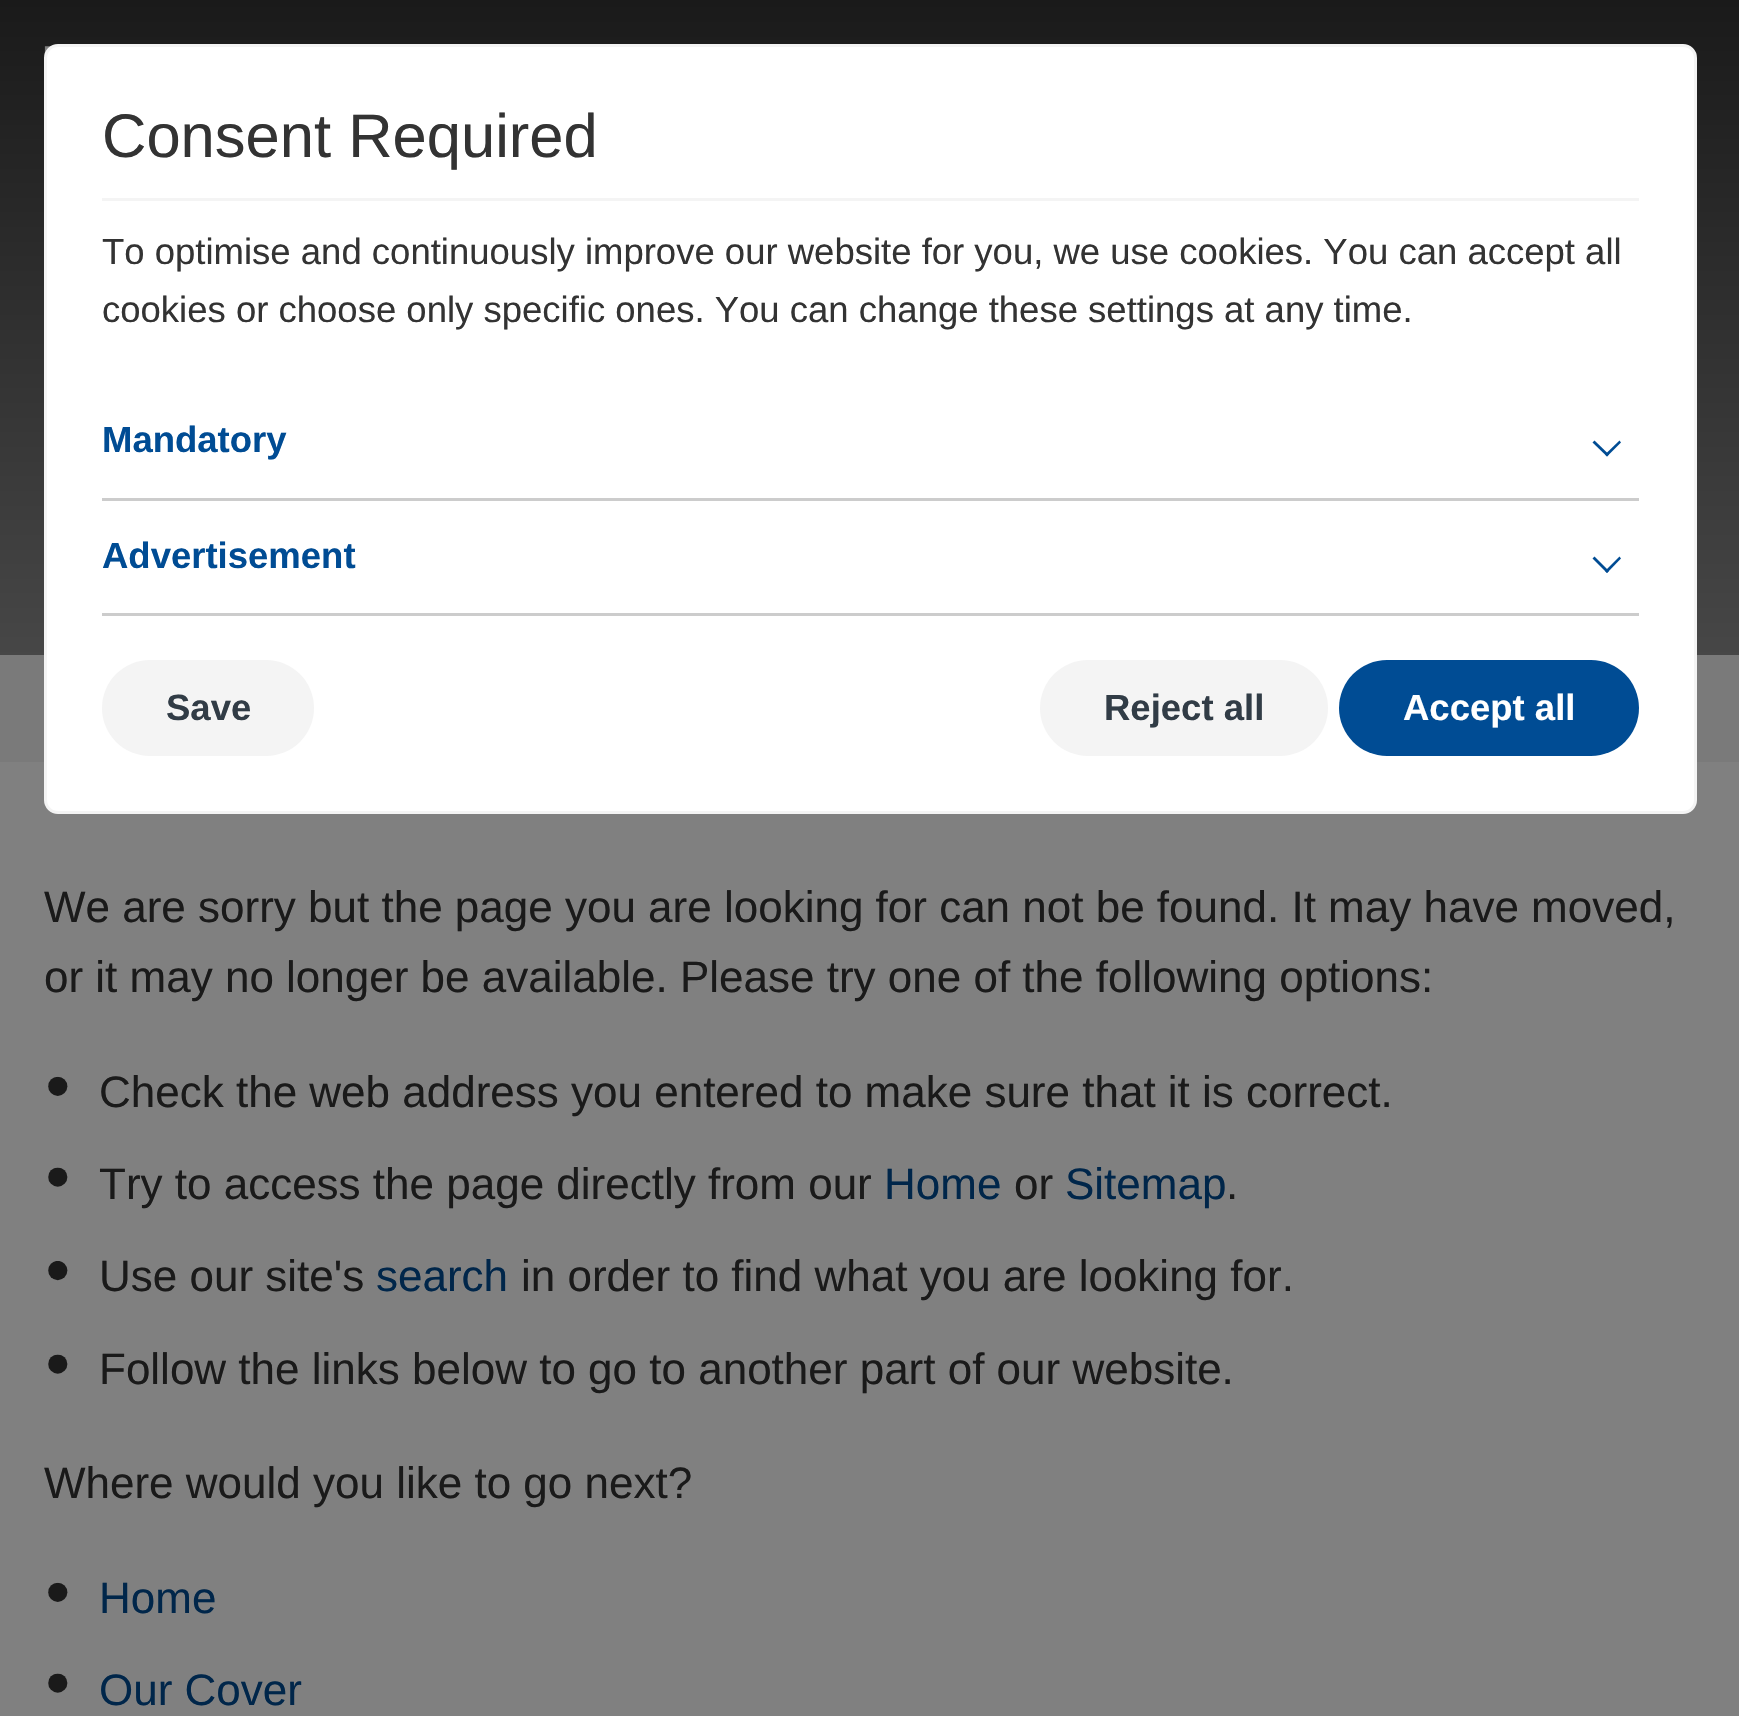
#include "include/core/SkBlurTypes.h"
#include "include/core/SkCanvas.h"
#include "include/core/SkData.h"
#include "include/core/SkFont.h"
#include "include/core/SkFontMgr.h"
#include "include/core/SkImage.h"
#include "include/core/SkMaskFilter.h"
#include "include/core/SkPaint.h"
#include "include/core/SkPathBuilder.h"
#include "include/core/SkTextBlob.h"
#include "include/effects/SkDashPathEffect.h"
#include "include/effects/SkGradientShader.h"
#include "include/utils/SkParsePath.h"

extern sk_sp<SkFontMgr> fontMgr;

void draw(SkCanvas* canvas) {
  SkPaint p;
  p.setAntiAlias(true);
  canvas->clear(SkColorSetRGB(128, 128, 128));
  {
    const SkColor colors[] = {SkColorSetRGB(26, 26, 26), SkColorSetRGB(78, 78, 78)};
    const float stops[] = {0, 1};
    const SkPoint ends[] = {{870, 0}, {870, 762}};
    p.setShader(SkGradientShader::MakeLinear(ends, colors, stops, 2, SkTileMode::kClamp));
    p.setAlpha(255);
  }
  canvas->drawRect(SkRect::MakeLTRB(0, 0, 1739, 655), p);
  canvas->drawImageRect(SkImages::DeferredFromEncodedData(SkData::MakeFromFileName("images/1.png")), SkRect::MakeLTRB(44, 46, 51, 58), SkSamplingOptions());
  p.setShader(nullptr);
  p.setColor(SkColorSetRGB(122, 122, 122));
  canvas->drawRect(SkRect::MakeLTRB(0, 655, 1739, 762), p);
  p.setColor(SK_ColorWHITE);
  canvas->drawRoundRect(SkRect::MakeLTRB(45.5f, 45.5f, 1695.5f, 812.5f), 12.5f, 12.5f, p);
  p.setStyle(SkPaint::kStroke_Style);
  p.setStrokeWidth(3);
  p.setColor(SkColorSetRGB(244, 244, 244));
  canvas->drawRoundRect(SkRect::MakeLTRB(45.5f, 45.5f, 1695.5f, 812.5f), 12.5f, 12.5f, p);
  p.setStyle(SkPaint::kFill_Style);
  canvas->drawRect(SkRect::MakeLTRB(102, 198, 1639, 201), p);
  p.setColor(SkColorSetRGB(204, 204, 204));
  canvas->drawRect(SkRect::MakeLTRB(102, 498, 1639, 501), p);
  p.setColor(SkColorSetRGB(0, 76, 148));
  canvas->drawPath(SkPathBuilder().moveTo(1619.5f, 440.5f).lineTo(1621, 442.5f).lineTo(1607, 456.5f).lineTo(1605, 454.5f).close().detach(), p);
  canvas->drawPath(SkPathBuilder().moveTo(1594.5f, 440.5f).lineTo(1609, 454.5f).lineTo(1607, 456.5f).lineTo(1592.5f, 442.5f).close().detach(), p);
  p.setColor(SkColorSetRGB(204, 204, 204));
  canvas->drawRect(SkRect::MakeLTRB(102, 613, 1639, 616), p);
  p.setColor(SkColorSetRGB(0, 76, 148));
  canvas->drawPath(SkPathBuilder().moveTo(1619.5f, 556.5f).lineTo(1621, 558.5f).lineTo(1607, 573).lineTo(1605, 571).close().detach(), p);
  canvas->drawPath(SkPathBuilder().moveTo(1594.5f, 556.5f).lineTo(1609, 571).lineTo(1607, 573).lineTo(1592.5f, 558.5f).close().detach(), p);
  p.setColor(SkColorSetRGB(244, 244, 244));
  canvas->drawRoundRect(SkRect::MakeLTRB(102, 660, 314, 756), 48, 48, p);
  canvas->drawRoundRect(SkRect::MakeLTRB(1040, 660, 1328, 756), 48, 48, p);
  p.setColor(SkColorSetRGB(0, 76, 148));
  canvas->drawRoundRect(SkRect::MakeLTRB(1339, 660, 1639, 756), 48, 48, p);
  canvas->drawImageRect(SkImages::DeferredFromEncodedData(SkData::MakeFromFileName("images/2.png")), SkRect::MakeLTRB(48, 1076, 68, 1096), SkSamplingOptions());
  canvas->drawImageRect(SkImages::DeferredFromEncodedData(SkData::MakeFromFileName("images/3.png")), SkRect::MakeLTRB(48, 1167, 68, 1187), SkSamplingOptions());
  canvas->drawImageRect(SkImages::DeferredFromEncodedData(SkData::MakeFromFileName("images/4.png")), SkRect::MakeLTRB(48, 1261, 68, 1281), SkSamplingOptions());
  canvas->drawImageRect(SkImages::DeferredFromEncodedData(SkData::MakeFromFileName("images/3.png")), SkRect::MakeLTRB(48, 1354, 68, 1374), SkSamplingOptions());
  canvas->drawImageRect(SkImages::DeferredFromEncodedData(SkData::MakeFromFileName("images/2.png")), SkRect::MakeLTRB(48, 1582, 68, 1602), SkSamplingOptions());
  canvas->drawImageRect(SkImages::DeferredFromEncodedData(SkData::MakeFromFileName("images/3.png")), SkRect::MakeLTRB(48, 1673, 68, 1693), SkSamplingOptions());
  SkFont font1(fontMgr->matchFamilyStyle("Liberation Sans", SkFontStyle::Normal()), 61.5f);
  font1.setSubpixel(true);
  p.setColor(SkColorSetRGB(51, 51, 51));
  canvas->drawString("Consent Required", 102, 157, font1, p);
  SkFont font2(fontMgr->matchFamilyStyle("Liberation Sans", SkFontStyle::Normal()), 36.5f);
  font2.setSubpixel(true);
  canvas->drawString("To optimise and continuously improve our website for you, we use cookies. You can accept all", 102, 264, font2, p);
  canvas->drawString("cookies or choose only specific ones. You can change these settings at any time.", 102, 322, font2, p);
  SkFont font3(fontMgr->matchFamilyStyle("Liberation Sans", SkFontStyle::Bold()), 36.5f);
  font3.setSubpixel(true);
  p.setColor(SkColorSetRGB(0, 76, 148));
  canvas->drawString("Mandatory", 102, 452, font3, p);
  canvas->drawString("Advertisement", 102, 568, font3, p);
  p.setColor(SkColorSetRGB(49, 60, 70));
  canvas->drawString("Save", 166, 720, font3, p);
  canvas->drawString("Reject all", 1104, 720, font3, p);
  p.setColor(SK_ColorWHITE);
  canvas->drawString("Accept all", 1403, 720, font3, p);
  SkFont font4(fontMgr->matchFamilyStyle("Liberation Sans", SkFontStyle::Normal()), 44);
  font4.setSubpixel(true);
  p.setColor(SkColorSetRGB(26, 26, 26));
  canvas->drawString("We are sorry but the page you are looking for can not be found. It may have moved,", 44, 922, font4, p);
  canvas->drawString("or it may no longer be available. Please try one of the following options:", 44, 992, font4, p);
  canvas->drawString("Check the web address you entered to make sure that it is correct.", 99, 1107, font4, p);
  canvas->drawString("Try to access the page directly from our", 99, 1199, font4, p);
  p.setColor(SkColorSetRGB(0, 38, 74));
  canvas->drawString("Home", 884, 1199, font4, p);
  p.setColor(SkColorSetRGB(26, 26, 26));
  canvas->drawString("or", 1014, 1199, font4, p);
  p.setColor(SkColorSetRGB(0, 38, 74));
  canvas->drawString("Sitemap", 1065, 1199, font4, p);
  p.setColor(SkColorSetRGB(26, 26, 26));
  canvas->drawString(".", 1226, 1199, font4, p);
  canvas->drawString("Use our site's", 99, 1291, font4, p);
  p.setColor(SkColorSetRGB(0, 38, 74));
  canvas->drawString("search", 376, 1291, font4, p);
  p.setColor(SkColorSetRGB(26, 26, 26));
  canvas->drawString("in order to find what you are looking for.", 521, 1291, font4, p);
  canvas->drawString("Follow the links below to go to another part of our website.", 99, 1384, font4, p);
  canvas->drawString("Where would you like to go next?", 44, 1498, font4, p);
  p.setColor(SkColorSetRGB(0, 38, 74));
  canvas->drawString("Home", 99, 1613, font4, p);
  canvas->drawString("Our Cover", 99, 1705, font4, p);
}
